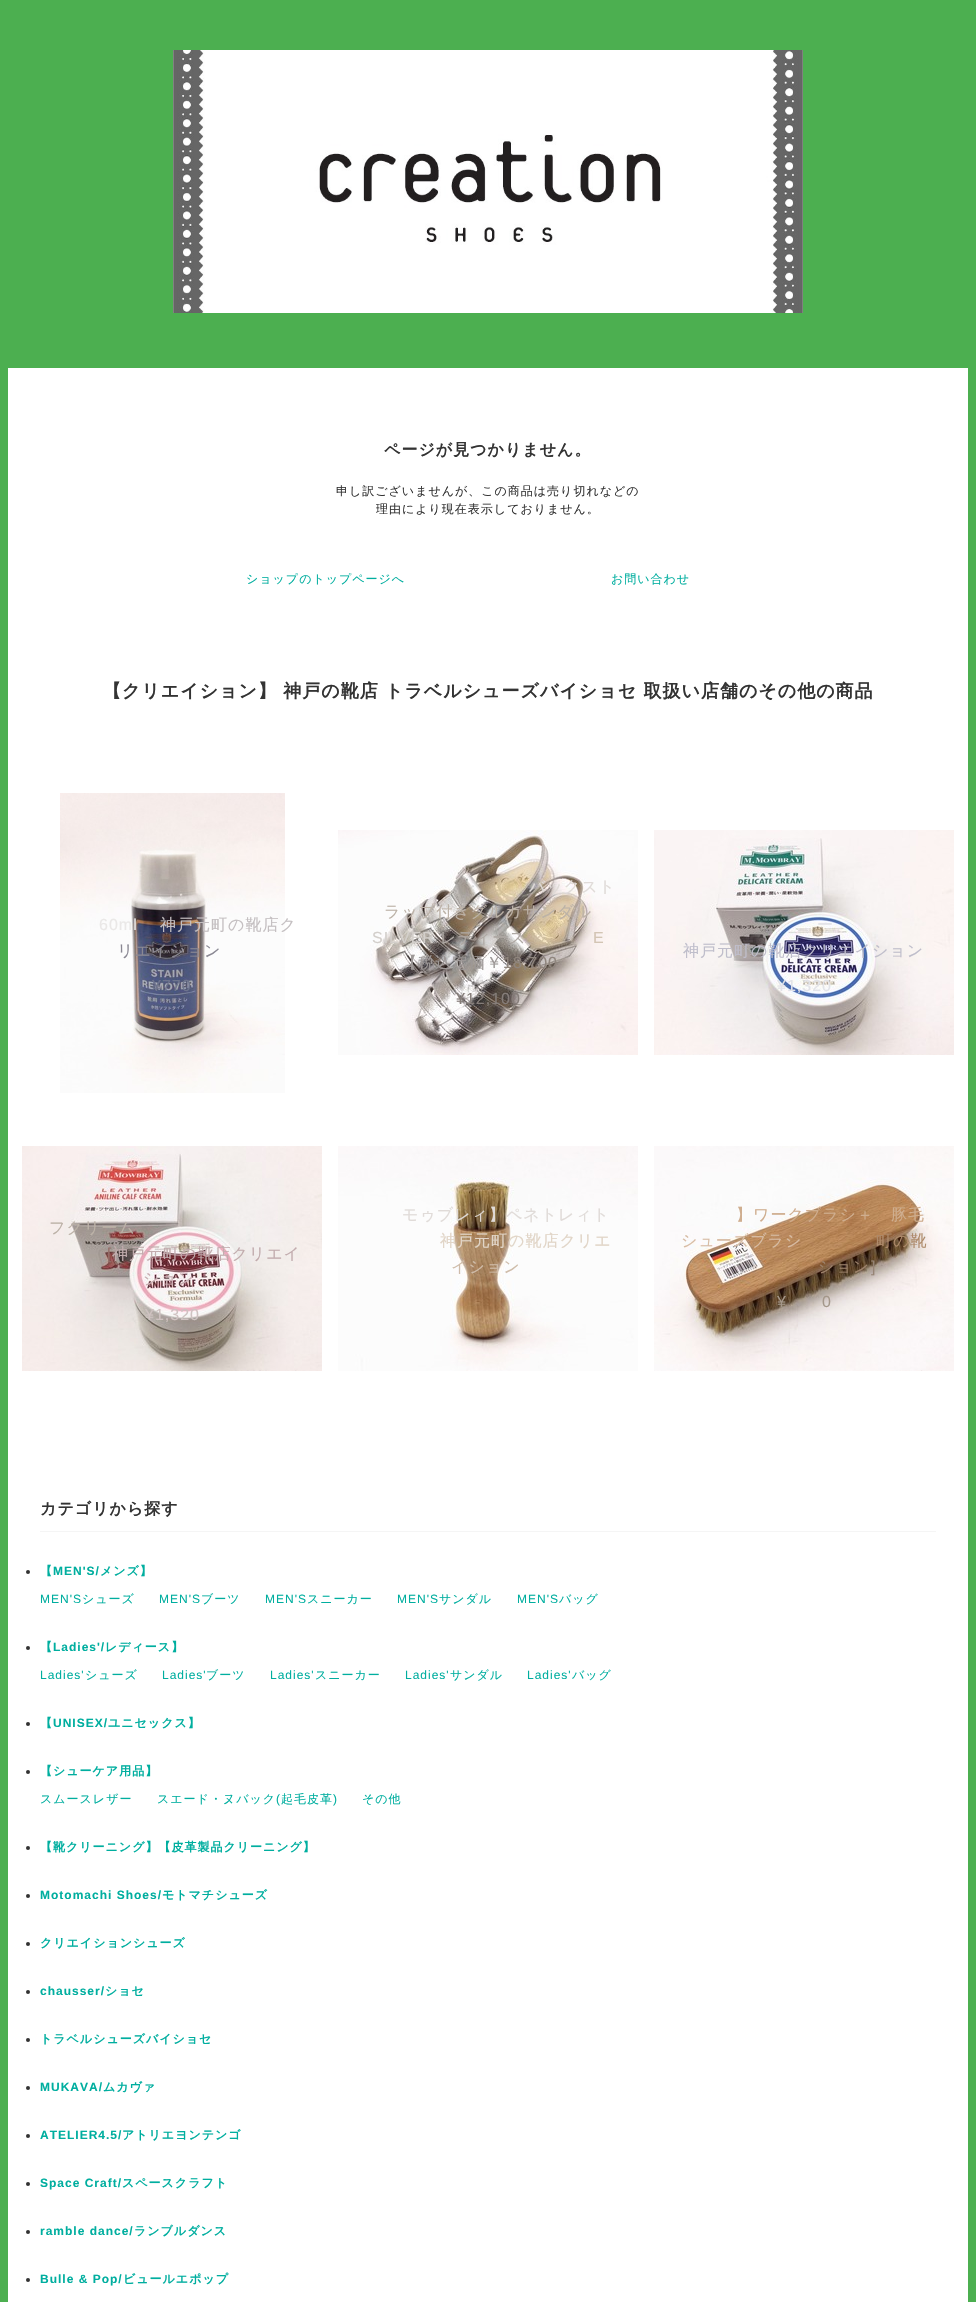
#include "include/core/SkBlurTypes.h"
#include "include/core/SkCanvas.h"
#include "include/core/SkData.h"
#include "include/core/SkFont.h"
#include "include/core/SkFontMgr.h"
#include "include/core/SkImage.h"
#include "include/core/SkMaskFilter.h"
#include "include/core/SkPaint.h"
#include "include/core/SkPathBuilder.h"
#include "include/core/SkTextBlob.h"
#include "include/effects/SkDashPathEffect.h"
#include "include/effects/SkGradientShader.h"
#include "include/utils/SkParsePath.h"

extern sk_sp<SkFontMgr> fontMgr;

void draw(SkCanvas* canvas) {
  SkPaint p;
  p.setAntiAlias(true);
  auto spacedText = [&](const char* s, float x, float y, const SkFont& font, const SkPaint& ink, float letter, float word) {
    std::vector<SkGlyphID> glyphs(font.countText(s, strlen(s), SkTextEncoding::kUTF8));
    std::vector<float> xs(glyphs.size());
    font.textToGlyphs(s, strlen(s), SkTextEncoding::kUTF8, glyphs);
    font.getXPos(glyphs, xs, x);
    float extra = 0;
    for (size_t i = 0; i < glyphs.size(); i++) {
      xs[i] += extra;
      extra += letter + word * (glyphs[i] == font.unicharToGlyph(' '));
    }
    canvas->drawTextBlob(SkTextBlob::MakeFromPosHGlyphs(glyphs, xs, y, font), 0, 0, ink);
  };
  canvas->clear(SkColorSetRGB(76, 175, 80));
  canvas->drawImageRect(SkImages::DeferredFromEncodedData(SkData::MakeFromFileName("images/1.png")), SkRect::MakeLTRB(173, 50, 803, 313), SkSamplingOptions());
  p.setColor(SK_ColorWHITE);
  canvas->drawRect(SkRect::MakeLTRB(8, 368, 968, 2302), p);
  canvas->drawImageRect(SkImages::DeferredFromEncodedData(SkData::MakeFromFileName("images/2.png")), SkRect::MakeLTRB(60, 793, 285, 1093), SkSamplingOptions());
  canvas->drawImageRect(SkImages::DeferredFromEncodedData(SkData::MakeFromFileName("images/3.png")), SkRect::MakeLTRB(338, 830, 638, 1055), SkSamplingOptions());
  canvas->drawImageRect(SkImages::DeferredFromEncodedData(SkData::MakeFromFileName("images/4.png")), SkRect::MakeLTRB(654, 830, 954, 1055), SkSamplingOptions());
  canvas->drawImageRect(SkImages::DeferredFromEncodedData(SkData::MakeFromFileName("images/5.png")), SkRect::MakeLTRB(22, 1146, 322, 1371), SkSamplingOptions());
  canvas->drawImageRect(SkImages::DeferredFromEncodedData(SkData::MakeFromFileName("images/6.png")), SkRect::MakeLTRB(338, 1146, 638, 1371), SkSamplingOptions());
  canvas->drawImageRect(SkImages::DeferredFromEncodedData(SkData::MakeFromFileName("images/7.png")), SkRect::MakeLTRB(654, 1146, 954, 1371), SkSamplingOptions());
  p.setColor(SkColorSetRGB(245, 245, 245));
  canvas->drawRect(SkRect::MakeLTRB(40, 1531, 936, 1532), p);
  p.setColor(SkColorSetRGB(51, 51, 51));
  canvas->drawCircle(28, 1572, 2, p);
  canvas->drawCircle(28, 1648, 2, p);
  canvas->drawCircle(28, 1724, 2, p);
  canvas->drawCircle(28, 1772, 2, p);
  canvas->drawCircle(28, 1848, 2, p);
  canvas->drawCircle(28, 1896, 2, p);
  canvas->drawCircle(28, 1944, 2, p);
  canvas->drawCircle(28, 1992, 2, p);
  canvas->drawCircle(28, 2040, 2, p);
  canvas->drawCircle(28, 2088, 2, p);
  canvas->drawCircle(28, 2136, 2, p);
  canvas->drawCircle(28, 2184, 2, p);
  canvas->drawCircle(28, 2232, 2, p);
  canvas->drawCircle(28, 2280, 2, p);
  SkFont font1(fontMgr->matchFamilyStyle("WenQuanYi Zen Hei", SkFontStyle::Bold()), 16);
  font1.setSubpixel(true);
  spacedText("ページが見つかりません。", 384, 455, font1, p, 1, 0);
  SkFont font2(fontMgr->matchFamilyStyle("WenQuanYi Zen Hei", SkFontStyle(500, SkFontStyle::kNormal_Width, SkFontStyle::kUpright_Slant)), 12);
  font2.setSubpixel(true);
  spacedText("申し訳ございませんが、この商品は売り切れなどの", 336, 495, font2, p, 1, 0);
  spacedText("理由により現在表示しておりません。", 376, 513, font2, p, 1, 0);
  p.setColor(SkColorSetRGB(0, 174, 159));
  spacedText("ショップのトップページへ", 246, 583, font2, p, 1, 0);
  spacedText("お問い合わせ", 611, 583, font2, p, 1, 0);
  SkFont font3(fontMgr->matchFamilyStyle("WenQuanYi Zen Hei", SkFontStyle::Bold()), 18);
  font3.setSubpixel(true);
  p.setColor(SkColorSetRGB(51, 51, 51));
  spacedText("【クリエイション】 神戸の靴店", 103, 697, font3, p, 1, 0);
  spacedText("トラベルシューズバイショセ 取扱い店舗のその他の商品", 385, 697, font3, p, 1, 0);
  SkFont font4(fontMgr->matchFamilyStyle("Liberation Sans", SkFontStyle::Normal()), 16);
  font4.setSubpixel(true);
  p.setColor(SkColorSetRGB(234, 232, 231));
  spacedText("60ml", 99, 930, font4, p, 1, 0);
  SkFont font5(fontMgr->matchFamilyStyle("WenQuanYi Zen Hei", SkFontStyle(500, SkFontStyle::kNormal_Width, SkFontStyle::kUpright_Slant)), 16);
  font5.setSubpixel(true);
  p.setColor(SkColorSetRGB(196, 191, 193));
  spacedText("神戸元町の靴店ク", 160, 930, font5, p, 1, 0);
  p.setColor(SkColorSetRGB(138, 136, 147));
  spacedText("リエイション", 117, 956, font5, p, 1, 0);
  p.setColor(SkColorSetRGB(110, 116, 141));
  spacedText("¥770", 152, 991, font4, p, 1, 0);
  p.setColor(SkColorSetRGB(224, 219, 216));
  spacedText("バックスト", 529, 892, font5, p, 1, 0);
  p.setColor(SkColorSetRGB(188, 178, 167));
  spacedText("ラップ付きグルカサンダル", 384, 917, font5, p, 1, 0);
  p.setColor(SkColorSetRGB(211, 207, 203));
  spacedText("SILVER", 372, 943, font4, p, 1, 0);
  p.setColor(SkColorSetRGB(174, 168, 163));
  spacedText("レディース", 440, 943, font5, p, 1, 0);
  p.setColor(SkColorSetRGB(211, 197, 180));
  spacedText("E", 593, 943, font4, p, 1, 0);
  p.setColor(SkColorSetRGB(157, 152, 151));
  spacedText("【税込定価￥", 401, 968, font5, p, 1, 0);
  p.setColor(SkColorSetRGB(143, 133, 125));
  spacedText("18,700", 503, 968, font4, p, 1, 0);
  p.setColor(SkColorSetRGB(133, 125, 121));
  spacedText("¥12,100", 456, 1004, font4, p, 1, 0);
  p.setColor(SkColorSetRGB(226, 227, 232));
  spacedText("ー", 817, 930, font5, p, 1, 0);
  p.setColor(SkColorSetRGB(191, 190, 203));
  spacedText("神戸元町の靴店クリエイション", 683, 956, font5, p, 1, 0);
  p.setColor(SkColorSetRGB(226, 227, 232));
  spacedText("¥1,320", 777, 991, font4, p, 1, 0);
  p.setColor(SkColorSetRGB(188, 178, 167));
  spacedText("フクリーム", 49, 1233, font5, p, 1, 0);
  p.setColor(SkColorSetRGB(148, 111, 106));
  spacedText("[", 107, 1259, font4, p, 1, 0);
  p.setColor(SkColorSetRGB(194, 172, 174));
  spacedText("神戸元町の靴店クリエイ", 112, 1259, font5, p, 1, 0);
  p.setColor(SkColorSetRGB(201, 175, 179));
  spacedText("ション", 143, 1284, font5, p, 1, 0);
  p.setColor(SkColorSetRGB(207, 194, 193));
  spacedText("¥1,320", 145, 1320, font4, p, 1, 0);
  p.setColor(SkColorSetRGB(224, 219, 216));
  spacedText("モゥブレィ】ペネトレィト", 402, 1220, font5, p, 1, 0);
  p.setColor(SkColorSetRGB(225, 213, 199));
  spacedText("神戸元町の靴店クリエ", 440, 1246, font5, p, 1, 0);
  p.setColor(SkColorSetRGB(207, 188, 169));
  spacedText("イション", 451, 1272, font5, p, 1, 0);
  p.setColor(SkColorSetRGB(207, 174, 143));
  spacedText("】ワークブラシ＋　豚毛", 736, 1220, font5, p, 1, 0);
  p.setColor(SkColorSetRGB(215, 188, 164));
  spacedText("シューズブラシ", 681, 1246, font5, p, 1, 0);
  p.setColor(SkColorSetRGB(174, 138, 106));
  spacedText("町の靴", 876, 1246, font5, p, 1, 0);
  p.setColor(SkColorSetRGB(156, 129, 106));
  spacedText("ション", 818, 1272, font5, p, 1, 0);
  p.setColor(SkColorSetRGB(150, 132, 117));
  spacedText("]", 871, 1272, font4, p, 1, 0);
  p.setColor(SkColorSetRGB(164, 151, 138));
  spacedText("¥", 777, 1307, font4, p, 1, 0);
  spacedText("0", 822, 1307, font4, p, 1, 0);
  p.setColor(SkColorSetRGB(51, 51, 51));
  spacedText("カテゴリから探す", 40, 1514, font1, p, 1, 0);
  SkFont font6(fontMgr->matchFamilyStyle("WenQuanYi Zen Hei", SkFontStyle::Bold()), 12);
  font6.setSubpixel(true);
  p.setColor(SkColorSetRGB(0, 174, 159));
  spacedText("【", 40, 1575, font6, p, 1, 0);
  SkFont font7(fontMgr->matchFamilyStyle("Liberation Sans", SkFontStyle::Bold()), 12);
  font7.setSubpixel(true);
  spacedText("MEN'S/", 53, 1575, font7, p, 1, 0);
  spacedText("メンズ】", 100, 1575, font6, p, 1, 0);
  SkFont font8(fontMgr->matchFamilyStyle("Liberation Sans", SkFontStyle::Normal()), 12);
  font8.setSubpixel(true);
  spacedText("MEN'S", 40, 1603, font8, p, 1, 0);
  spacedText("シューズ", 82, 1603, font2, p, 1, 0);
  spacedText("MEN'S", 159, 1603, font8, p, 1, 0);
  spacedText("ブーツ", 201, 1603, font2, p, 1, 0);
  spacedText("MEN'S", 265, 1603, font8, p, 1, 0);
  spacedText("スニーカー", 307, 1603, font2, p, 1, 0);
  spacedText("MEN'S", 397, 1603, font8, p, 1, 0);
  spacedText("サンダル", 439, 1603, font2, p, 1, 0);
  spacedText("MEN'S", 517, 1603, font8, p, 1, 0);
  spacedText("バッグ", 559, 1603, font2, p, 1, 0);
  spacedText("【", 40, 1651, font6, p, 1, 0);
  spacedText("Ladies'/", 53, 1651, font7, p, 1, 0);
  spacedText("レディース】", 105, 1651, font6, p, 1, 0);
  spacedText("Ladies'", 40, 1679, font8, p, 1, 0);
  spacedText("シューズ", 85, 1679, font2, p, 1, 0);
  spacedText("Ladies'", 162, 1679, font8, p, 1, 0);
  spacedText("ブーツ", 206, 1679, font2, p, 1, 0);
  spacedText("Ladies'", 270, 1679, font8, p, 1, 0);
  spacedText("スニーカー", 315, 1679, font2, p, 1, 0);
  spacedText("Ladies'", 405, 1679, font8, p, 1, 0);
  spacedText("サンダル", 450, 1679, font2, p, 1, 0);
  spacedText("Ladies'", 527, 1679, font8, p, 1, 0);
  spacedText("バッグ", 572, 1679, font2, p, 1, 0);
  spacedText("【", 40, 1727, font6, p, 1, 0);
  spacedText("UNISEX/", 53, 1727, font7, p, 1, 0);
  spacedText("ユニセックス】", 108, 1727, font6, p, 1, 0);
  spacedText("【シューケア用品】", 40, 1775, font6, p, 1, 0);
  spacedText("スムースレザー", 40, 1803, font2, p, 1, 0);
  spacedText("スエード・ヌバック", 157, 1803, font2, p, 1, 0);
  spacedText("(", 276, 1803, font8, p, 1, 0);
  spacedText("起毛皮革", 281, 1803, font2, p, 1, 0);
  spacedText(")", 333, 1803, font8, p, 1, 0);
  spacedText("その他", 362, 1803, font2, p, 1, 0);
  spacedText("【靴クリーニング】【皮革製品クリーニング】", 40, 1851, font6, p, 1, 0);
  spacedText("Motomachi Shoes/", 40, 1899, font7, p, 1, 0);
  spacedText("モトマチシューズ", 162, 1899, font6, p, 1, 0);
  spacedText("クリエイションシューズ", 40, 1947, font6, p, 1, 0);
  spacedText("chausser/", 40, 1995, font7, p, 1, 0);
  spacedText("ショセ", 105, 1995, font6, p, 1, 0);
  spacedText("トラベルシューズバイショセ", 40, 2043, font6, p, 1, 0);
  spacedText("MUKAVA/", 40, 2091, font7, p, 1, 0);
  spacedText("ムカヴァ", 103, 2091, font6, p, 1, 0);
  spacedText("ATELIER4.5/", 40, 2139, font7, p, 1, 0);
  spacedText("アトリエヨンテンゴ", 122, 2139, font6, p, 1, 0);
  spacedText("Space Craft/", 40, 2187, font7, p, 1, 0);
  spacedText("スペースクラフト", 122, 2187, font6, p, 1, 0);
  spacedText("ramble dance/", 40, 2235, font7, p, 1, 0);
  spacedText("ランブルダンス", 134, 2235, font6, p, 1, 0);
  spacedText("Bulle & Pop/", 40, 2283, font7, p, 1, 0);
  spacedText("ビュールエポップ", 123, 2283, font6, p, 1, 0);
}
